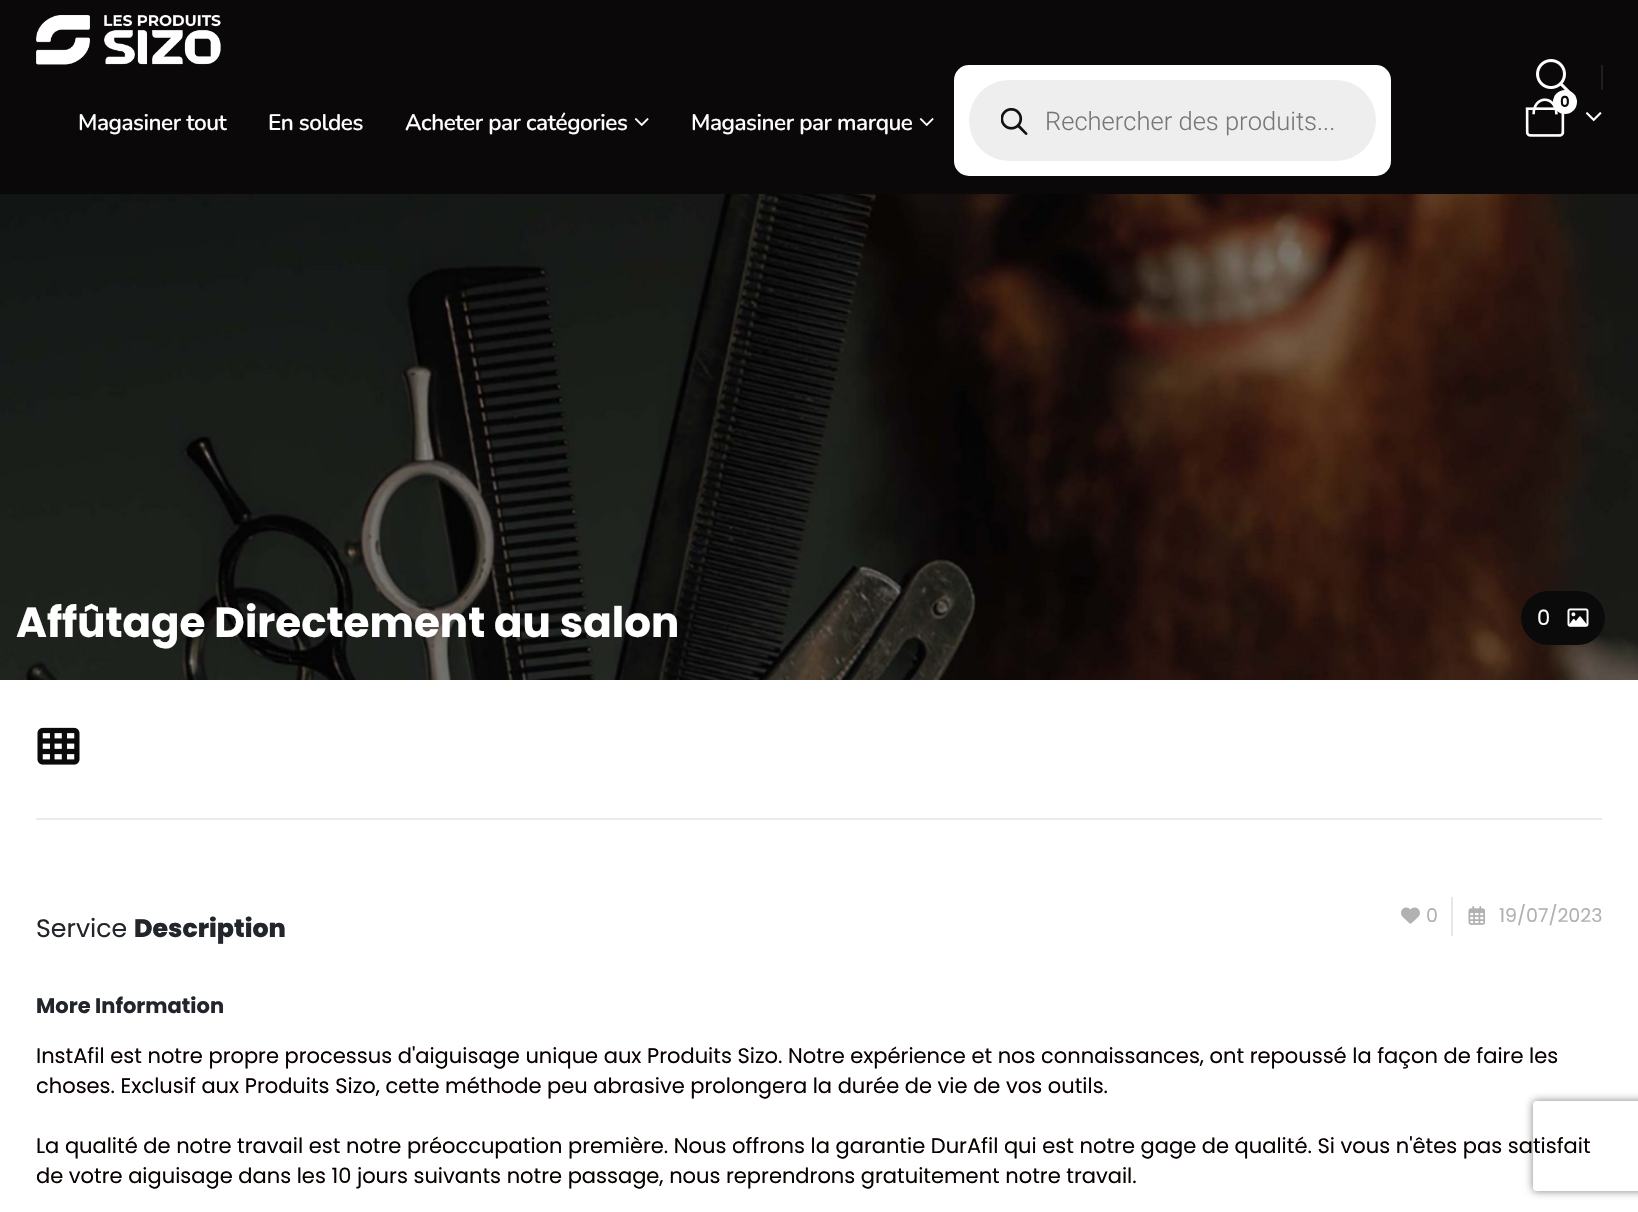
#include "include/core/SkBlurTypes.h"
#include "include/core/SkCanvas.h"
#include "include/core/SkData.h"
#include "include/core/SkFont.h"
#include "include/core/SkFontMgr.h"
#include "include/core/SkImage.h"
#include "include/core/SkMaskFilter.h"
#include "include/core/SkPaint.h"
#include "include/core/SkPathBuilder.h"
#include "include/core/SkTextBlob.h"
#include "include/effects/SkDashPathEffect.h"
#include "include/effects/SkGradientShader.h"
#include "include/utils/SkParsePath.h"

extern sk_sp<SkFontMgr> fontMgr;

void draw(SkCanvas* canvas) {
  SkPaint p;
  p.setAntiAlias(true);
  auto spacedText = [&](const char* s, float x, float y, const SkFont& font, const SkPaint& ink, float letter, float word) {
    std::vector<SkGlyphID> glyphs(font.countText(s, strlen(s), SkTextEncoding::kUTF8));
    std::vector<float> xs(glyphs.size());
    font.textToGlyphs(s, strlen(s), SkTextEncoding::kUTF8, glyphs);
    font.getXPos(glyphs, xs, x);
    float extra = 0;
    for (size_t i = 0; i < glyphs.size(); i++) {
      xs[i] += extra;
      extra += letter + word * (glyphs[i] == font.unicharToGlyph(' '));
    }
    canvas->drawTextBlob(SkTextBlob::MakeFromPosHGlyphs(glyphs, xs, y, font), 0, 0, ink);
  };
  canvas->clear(SK_ColorWHITE);
  p.setColor(SkColorSetRGB(10, 8, 8));
  canvas->drawRect(SkRect::MakeLTRB(0, 0, 1638, 194), p);
  canvas->drawImageRect(SkImages::DeferredFromEncodedData(SkData::MakeFromFileName("images/1.png")), SkRect::MakeLTRB(1536, 59, 1575, 96), SkSamplingOptions());
  p.setColor(SkColorSetRGB(32, 30, 30));
  canvas->drawRect(SkRect::MakeLTRB(1601, 65, 1603, 90), p);
  canvas->drawImageRect(SkImages::DeferredFromEncodedData(SkData::MakeFromFileName("images/2.png")), SkRect::MakeLTRB(1525, 98, 1565, 137), SkSamplingOptions());
  p.setColor(SK_ColorWHITE);
  canvas->drawCircle(1565, 102, 12, p);
  canvas->drawImageRect(SkImages::DeferredFromEncodedData(SkData::MakeFromFileName("images/3.png")), SkRect::MakeLTRB(1585, 112, 1602, 122), SkSamplingOptions());
  canvas->drawImageRect(SkImages::DeferredFromEncodedData(SkData::MakeFromFileName("images/4.png")), SkRect::MakeLTRB(36, 15, 221, 65), SkSamplingOptions());
  canvas->drawImageRect(SkImages::DeferredFromEncodedData(SkData::MakeFromFileName("images/5.png")), SkRect::MakeLTRB(634, 118, 649, 126), SkSamplingOptions());
  canvas->drawImageRect(SkImages::DeferredFromEncodedData(SkData::MakeFromFileName("images/5.png")), SkRect::MakeLTRB(919, 118, 934, 126), SkSamplingOptions());
  canvas->drawRoundRect(SkRect::MakeLTRB(954, 65, 1391, 176), 15, 15, p);
  p.setColor(SkColorSetRGB(238, 238, 238));
  canvas->drawRoundRect(SkRect::MakeLTRB(969, 80, 1376, 161), 40.5f, 40.5f, p);
  canvas->drawImageRect(SkImages::DeferredFromEncodedData(SkData::MakeFromFileName("images/6.png")), SkRect::MakeLTRB(1001, 108, 1028, 135), SkSamplingOptions());
  canvas->drawImageRect(SkImages::DeferredFromEncodedData(SkData::MakeFromFileName("images/7.png")), SkRect::MakeLTRB(0, 194, 1638, 680), SkSamplingOptions());
  p.setColor(SkColorSetRGB(10, 10, 10));
  canvas->drawRoundRect(SkRect::MakeLTRB(1521, 591, 1605, 645), 27, 27, p);
  canvas->drawImageRect(SkImages::DeferredFromEncodedData(SkData::MakeFromFileName("images/8.png")), SkRect::MakeLTRB(1567, 608, 1589, 627), SkSamplingOptions());
  canvas->drawImageRect(SkImages::DeferredFromEncodedData(SkData::MakeFromFileName("images/9.png")), SkRect::MakeLTRB(37, 727, 80, 765), SkSamplingOptions());
  p.setColor(SkColorSetRGB(235, 235, 235));
  canvas->drawRect(SkRect::MakeLTRB(36, 818, 1602, 820), p);
  p.setColor(SkColorSetRGB(231, 231, 231));
  canvas->drawRect(SkRect::MakeLTRB(1451, 897, 1453, 936), p);
  canvas->drawImageRect(SkImages::DeferredFromEncodedData(SkData::MakeFromFileName("images/10.png")), SkRect::MakeLTRB(1401, 907, 1420, 924), SkSamplingOptions());
  canvas->drawImageRect(SkImages::DeferredFromEncodedData(SkData::MakeFromFileName("images/11.png")), SkRect::MakeLTRB(1468, 906, 1485, 925), SkSamplingOptions());
  canvas->save();
  canvas->clipPath(SkPathBuilder(SkPathFillType::kEvenOdd).moveTo(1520, 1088).lineTo(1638, 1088).lineTo(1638, 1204).lineTo(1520, 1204).close().moveTo(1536, 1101).lineTo(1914, 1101).cubicTo(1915.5f, 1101, 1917, 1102.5f, 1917, 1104).lineTo(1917, 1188).cubicTo(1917, 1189.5f, 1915.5f, 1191, 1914, 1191).lineTo(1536, 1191).cubicTo(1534.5f, 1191, 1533, 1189.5f, 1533, 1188).lineTo(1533, 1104).cubicTo(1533, 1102.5f, 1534.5f, 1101, 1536, 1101).close().detach(), true);
  p.setColor(SkColorSetRGB(128, 128, 128));
  p.setMaskFilter(SkMaskFilter::MakeBlur(kNormal_SkBlurStyle, 4));
  canvas->drawRoundRect(SkRect::MakeLTRB(1533, 1101, 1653, 1191), 3, 3, p);
  p.setMaskFilter(nullptr);
  canvas->restore();
  SkFont font1(fontMgr->matchFamilyStyle("Poppins", SkFontStyle(600, SkFontStyle::kNormal_Width, SkFontStyle::kUpright_Slant)), 15);
  font1.setSubpixel(true);
  p.setColor(SkColorSetRGB(10, 10, 10));
  canvas->drawString("0", 1560, 107, font1, p);
  SkFont font2(fontMgr->matchFamilyStyle("Nunito", SkFontStyle(200, SkFontStyle::kNormal_Width, SkFontStyle::kUpright_Slant)), 22.5f);
  font2.setSubpixel(true);
  p.setColor(SK_ColorWHITE);
  spacedText("Magasiner tout", 78, 130, font2, p, -0.45f, 0);
  spacedText("En soldes", 268, 130, font2, p, -0.45f, 0);
  spacedText("Acheter par catégories", 405, 130, font2, p, -0.45f, 0);
  spacedText("Magasiner par marque", 691, 130, font2, p, -0.45f, 0);
  SkFont font3(fontMgr->matchFamilyStyle("Roboto", SkFontStyle(300, SkFontStyle::kNormal_Width, SkFontStyle::kUpright_Slant)), 25.5f);
  font3.setSubpixel(true);
  p.setColor(SkColorSetRGB(119, 119, 119));
  canvas->drawString("Rechercher des produits...", 1045, 130, font3, p);
  SkFont font4(fontMgr->matchFamilyStyle("Poppins", SkFontStyle::Bold()), 42);
  font4.setSubpixel(true);
  p.setColor(SK_ColorWHITE);
  canvas->drawString("Affûtage Directement au salon", 16, 637, font4, p);
  SkFont font5(fontMgr->matchFamilyStyle("Poppins", SkFontStyle::Normal()), 21);
  font5.setSubpixel(true);
  canvas->drawString("0", 1537, 625, font5, p);
  SkFont font6(fontMgr->matchFamilyStyle("Poppins", SkFontStyle::Normal()), 25.25f);
  font6.setSubpixel(true);
  p.setColor(SkColorSetRGB(34, 37, 41));
  canvas->drawString("Service", 36, 937, font6, p);
  SkFont font7(fontMgr->matchFamilyStyle("Poppins", SkFontStyle(800, SkFontStyle::kNormal_Width, SkFontStyle::kUpright_Slant)), 25.25f);
  font7.setSubpixel(true);
  canvas->drawString("Description", 134, 937, font7, p);
  SkFont font8(fontMgr->matchFamilyStyle("Poppins", SkFontStyle::Normal()), 19);
  font8.setSubpixel(true);
  p.setColor(SkColorSetRGB(177, 177, 177));
  canvas->drawString("0", 1426, 922, font8, p);
  canvas->drawString("19/07/2023", 1499, 922, font8, p);
  SkFont font9(fontMgr->matchFamilyStyle("Poppins", SkFontStyle::Bold()), 21);
  font9.setSubpixel(true);
  p.setColor(SkColorSetRGB(34, 37, 41));
  canvas->drawString("More Information", 36, 1013, font9, p);
  p.setColor(SkColorSetRGB(10, 1, 1));
  canvas->drawString("InstAfil est notre propre processus d'aiguisage unique aux Produits Sizo. Notre expérience et nos connaissances, ont repoussé la façon de faire les", 36, 1063, font5, p);
  canvas->drawString("choses. Exclusif aux Produits Sizo, cette méthode peu abrasive prolongera la durée de vie de vos outils.", 36, 1093, font5, p);
  canvas->drawString("La qualité de notre travail est notre préoccupation première. Nous offrons la garantie DurAfil qui est notre gage de qualité. Si vous n'êtes pas satisfait", 36, 1153, font5, p);
  canvas->drawString("de votre aiguisage dans les 10 jours suivants notre passage, nous reprendrons gratuitement notre travail.", 36, 1183, font5, p);
}
